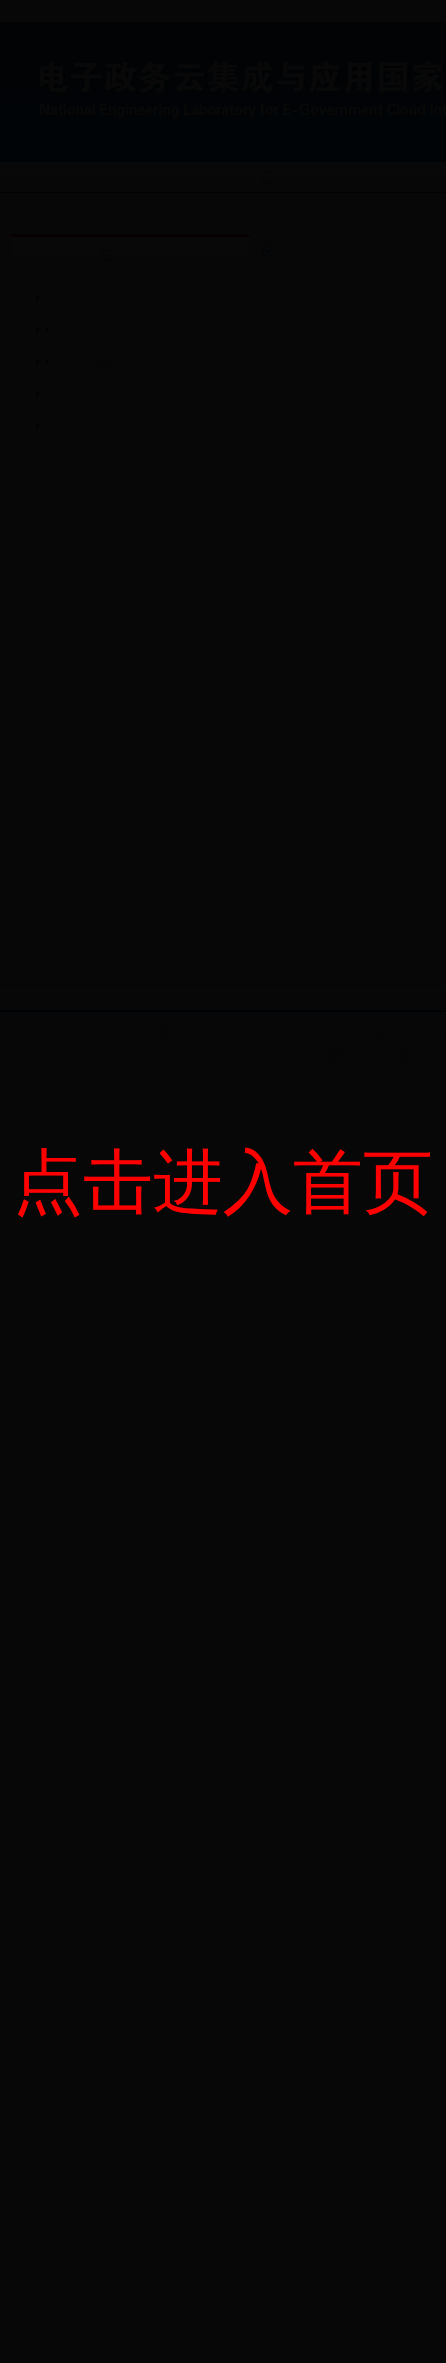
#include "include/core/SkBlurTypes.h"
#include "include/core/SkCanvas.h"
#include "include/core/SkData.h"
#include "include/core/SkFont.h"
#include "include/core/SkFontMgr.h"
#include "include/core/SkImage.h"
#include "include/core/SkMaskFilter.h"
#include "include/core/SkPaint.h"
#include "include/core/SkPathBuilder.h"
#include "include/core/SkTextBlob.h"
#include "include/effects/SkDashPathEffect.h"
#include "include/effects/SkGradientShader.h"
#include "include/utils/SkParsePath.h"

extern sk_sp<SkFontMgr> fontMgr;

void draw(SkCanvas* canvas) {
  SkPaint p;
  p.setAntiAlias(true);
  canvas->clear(SkColorSetRGB(7, 7, 7));
  canvas->drawImageRect(SkImages::DeferredFromEncodedData(SkData::MakeFromFileName("images/1.png")), SkRect::MakeLTRB(0, 22, 446, 162), SkSamplingOptions());
  canvas->drawImageRect(SkImages::DeferredFromEncodedData(SkData::MakeFromFileName("images/2.png")), SkRect::MakeLTRB(0, 162, 446, 193), SkSamplingOptions());
  canvas->drawImageRect(SkImages::DeferredFromEncodedData(SkData::MakeFromFileName("images/3.png")), SkRect::MakeLTRB(261, 172, 271, 183), SkSamplingOptions());
  canvas->drawImageRect(SkImages::DeferredFromEncodedData(SkData::MakeFromFileName("images/4.png")), SkRect::MakeLTRB(11, 234, 249, 278), SkSamplingOptions());
  canvas->drawImageRect(SkImages::DeferredFromEncodedData(SkData::MakeFromFileName("images/5.png")), SkRect::MakeLTRB(102, 250, 112, 261), SkSamplingOptions());
  canvas->drawImageRect(SkImages::DeferredFromEncodedData(SkData::MakeFromFileName("images/6.png")), SkRect::MakeLTRB(36, 295, 40, 302), SkSamplingOptions());
  canvas->drawImageRect(SkImages::DeferredFromEncodedData(SkData::MakeFromFileName("images/6.png")), SkRect::MakeLTRB(36, 327, 40, 334), SkSamplingOptions());
  canvas->drawImageRect(SkImages::DeferredFromEncodedData(SkData::MakeFromFileName("images/6.png")), SkRect::MakeLTRB(46, 327, 50, 334), SkSamplingOptions());
  canvas->drawImageRect(SkImages::DeferredFromEncodedData(SkData::MakeFromFileName("images/6.png")), SkRect::MakeLTRB(36, 359, 40, 366), SkSamplingOptions());
  canvas->drawImageRect(SkImages::DeferredFromEncodedData(SkData::MakeFromFileName("images/6.png")), SkRect::MakeLTRB(46, 359, 50, 366), SkSamplingOptions());
  canvas->drawImageRect(SkImages::DeferredFromEncodedData(SkData::MakeFromFileName("images/7.png")), SkRect::MakeLTRB(93, 357, 112, 367), SkSamplingOptions());
  canvas->drawImageRect(SkImages::DeferredFromEncodedData(SkData::MakeFromFileName("images/6.png")), SkRect::MakeLTRB(36, 391, 40, 398), SkSamplingOptions());
  canvas->drawImageRect(SkImages::DeferredFromEncodedData(SkData::MakeFromFileName("images/6.png")), SkRect::MakeLTRB(36, 423, 40, 430), SkSamplingOptions());
  canvas->drawImageRect(SkImages::DeferredFromEncodedData(SkData::MakeFromFileName("images/8.png")), SkRect::MakeLTRB(262, 244, 273, 256), SkSamplingOptions());
  canvas->drawImageRect(SkImages::DeferredFromEncodedData(SkData::MakeFromFileName("images/9.png")), SkRect::MakeLTRB(0, 989, 446, 1012), SkSamplingOptions());
  canvas->drawImageRect(SkImages::DeferredFromEncodedData(SkData::MakeFromFileName("images/10.png")), SkRect::MakeLTRB(160, 1028, 167, 1037), SkSamplingOptions());
  canvas->drawImageRect(SkImages::DeferredFromEncodedData(SkData::MakeFromFileName("images/10.png")), SkRect::MakeLTRB(375, 1028, 382, 1037), SkSamplingOptions());
  canvas->drawImageRect(SkImages::DeferredFromEncodedData(SkData::MakeFromFileName("images/11.png")), SkRect::MakeLTRB(444, 1028, 446, 1037), SkSamplingOptions());
  canvas->drawImageRect(SkImages::DeferredFromEncodedData(SkData::MakeFromFileName("images/10.png")), SkRect::MakeLTRB(332, 1050, 339, 1059), SkSamplingOptions());
  canvas->drawImageRect(SkImages::DeferredFromEncodedData(SkData::MakeFromFileName("images/10.png")), SkRect::MakeLTRB(402, 1050, 409, 1059), SkSamplingOptions());
  SkFont font1(fontMgr->matchFamilyStyle("WenQuanYi Zen Hei", SkFontStyle(500, SkFontStyle::kNormal_Width, SkFontStyle::kUpright_Slant)), 70);
  font1.setSubpixel(true);
  p.setColor(SkColorSetRGB(255, 0, 0));
  canvas->drawString("点击进入首页", 13, 1206, font1, p);
}
